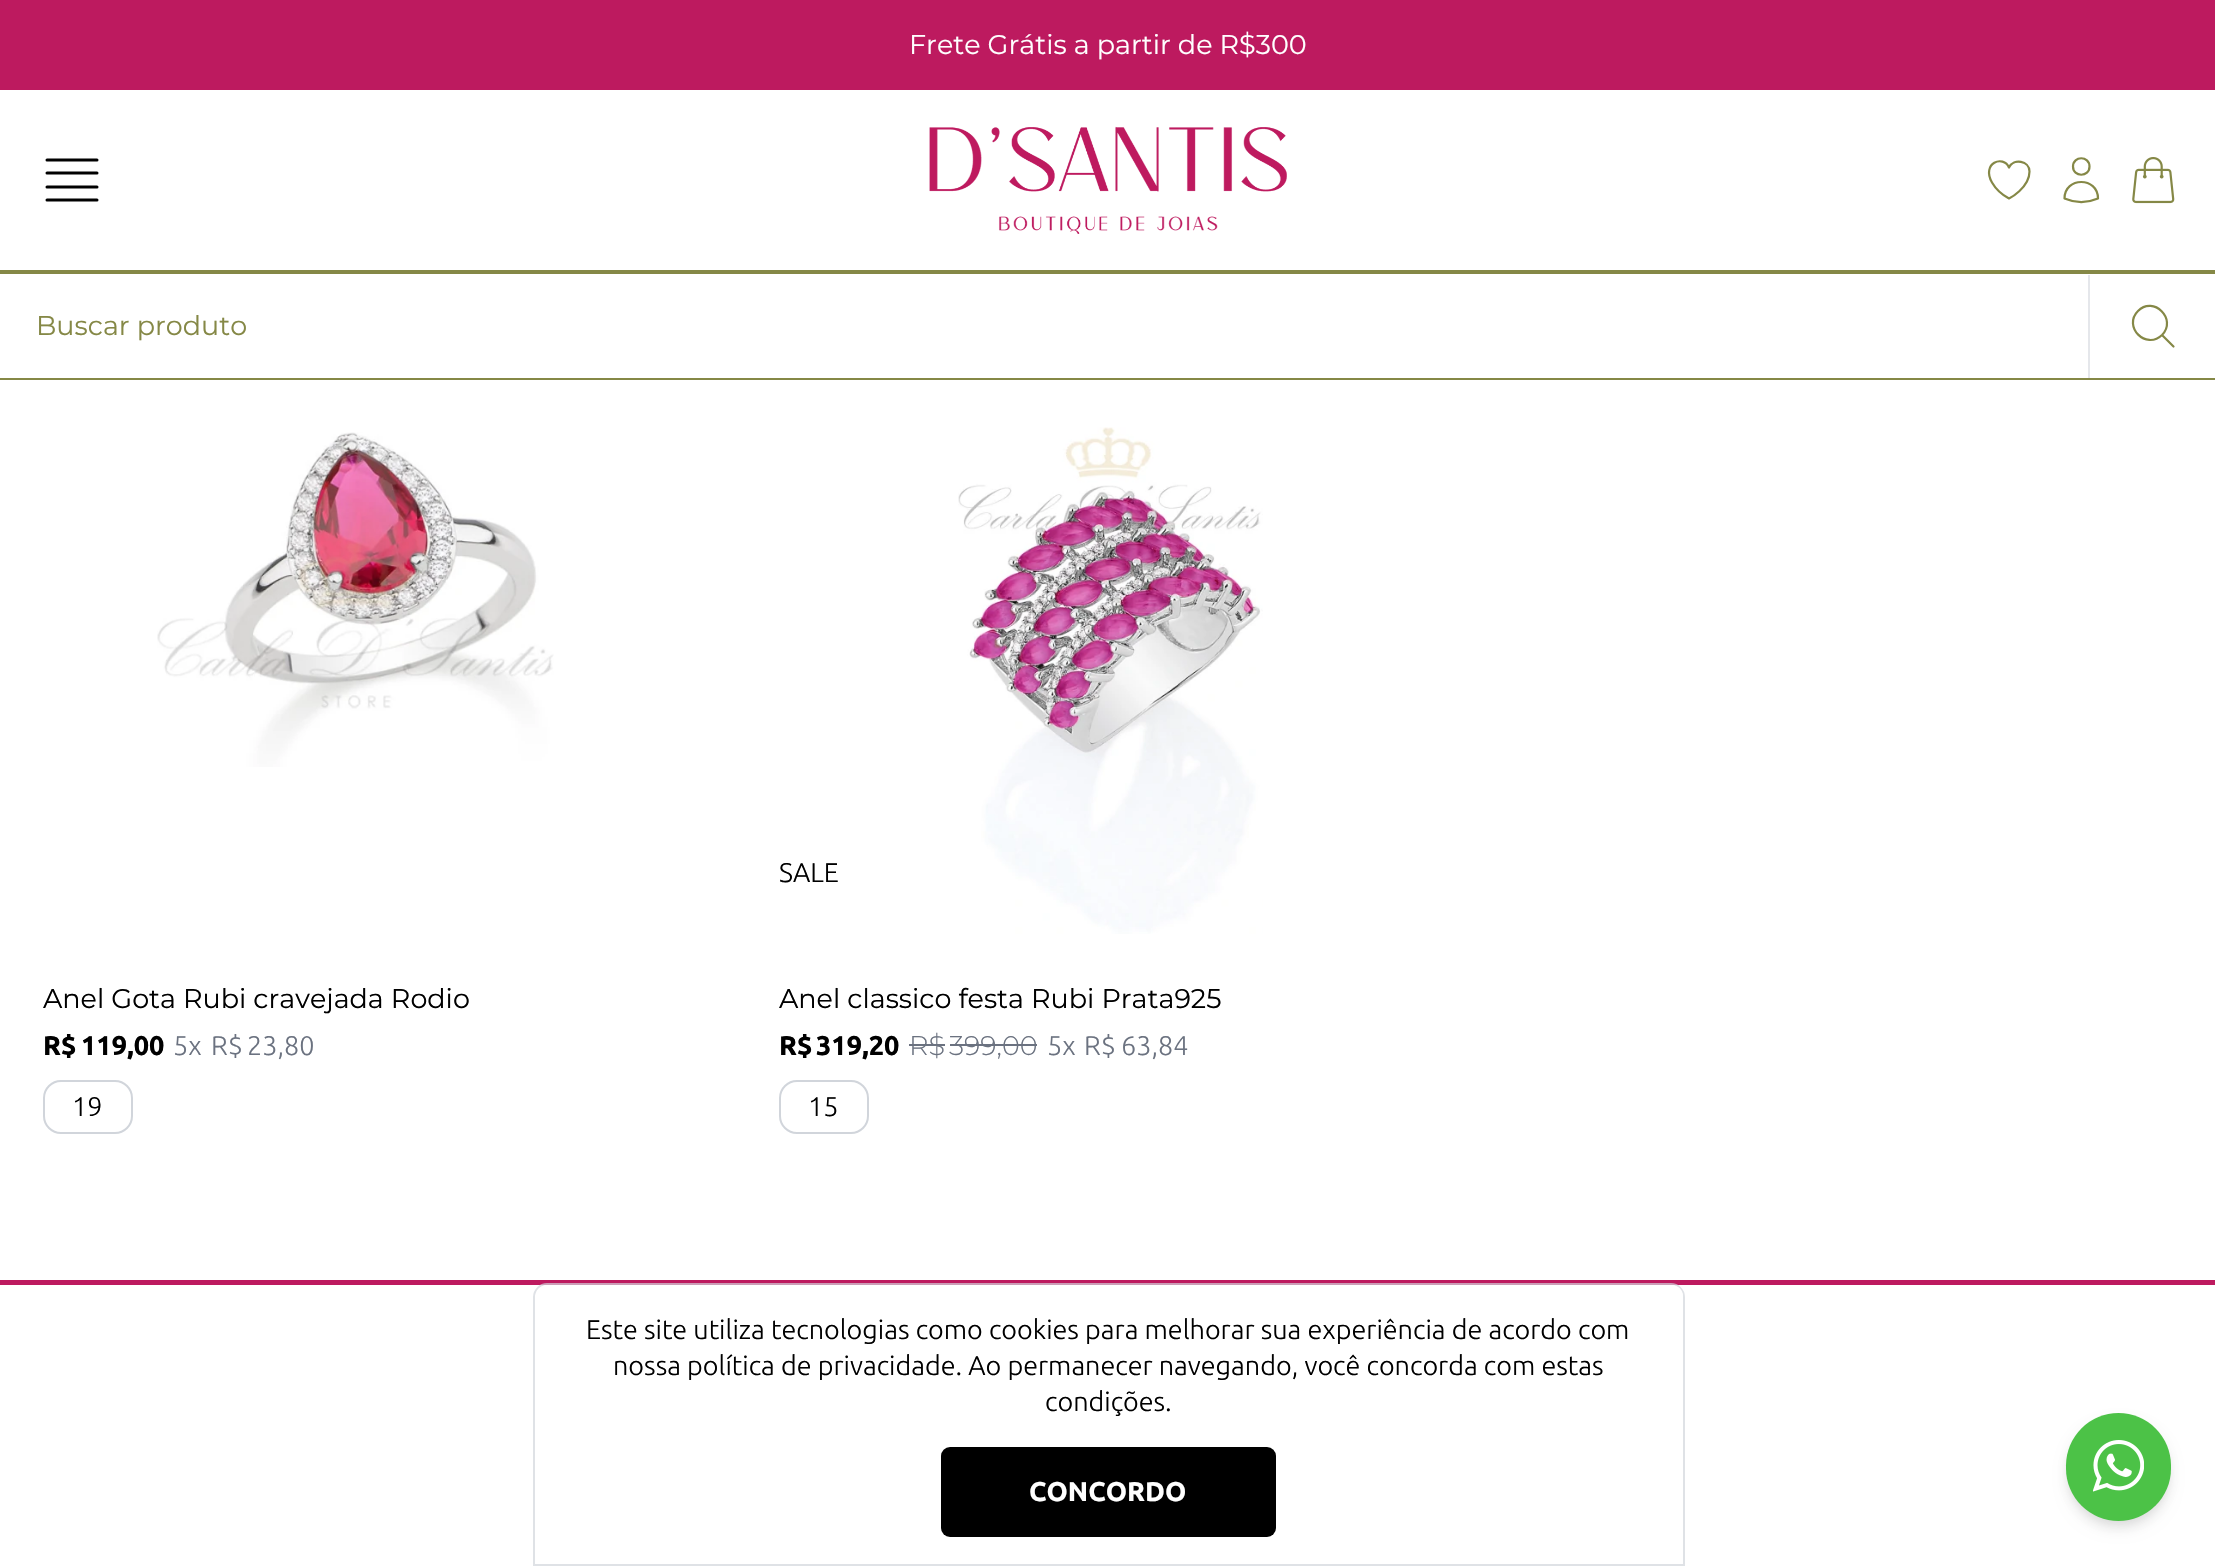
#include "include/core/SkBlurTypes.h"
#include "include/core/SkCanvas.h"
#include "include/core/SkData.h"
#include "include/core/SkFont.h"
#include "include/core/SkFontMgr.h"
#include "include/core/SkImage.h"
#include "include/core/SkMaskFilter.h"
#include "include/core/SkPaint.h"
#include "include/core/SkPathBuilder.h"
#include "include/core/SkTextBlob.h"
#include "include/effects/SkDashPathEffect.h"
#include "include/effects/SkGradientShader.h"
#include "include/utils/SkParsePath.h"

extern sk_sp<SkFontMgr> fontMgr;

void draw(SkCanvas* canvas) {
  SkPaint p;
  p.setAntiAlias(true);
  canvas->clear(SK_ColorWHITE);
  p.setColor(SkColorSetRGB(189, 26, 95));
  canvas->drawRect(SkRect::MakeLTRB(0, 0, 2215, 90), p);
  p.setStyle(SkPaint::kStroke_Style);
  p.setStrokeWidth(3);
  p.setStrokeCap(SkPaint::kRound_Cap);
  p.setStrokeJoin(SkPaint::kRound_Join);
  p.setColor(SK_ColorBLACK);
  canvas->drawPath(SkPathBuilder().moveTo(47, 160).lineTo(97, 160).moveTo(47, 173).lineTo(97, 173).moveTo(47, 187).lineTo(97, 187).moveTo(47, 200).lineTo(97, 200).detach(), p);
  canvas->drawImageRect(SkImages::DeferredFromEncodedData(SkData::MakeFromFileName("images/1.png")), SkRect::MakeLTRB(929, 126, 1287, 234), SkSamplingOptions());
  p.setStrokeWidth(2.2f);
  p.setColor(SkColorSetRGB(133, 136, 70));
  canvas->drawPath(SkPathBuilder().moveTo(2029.5f, 171.5f).cubicTo(2029.5f, 160.5f, 2013.5f, 158, 2009, 167.5f).cubicTo(2003.5f, 154.5f, 1981, 163, 1992, 182.5f).cubicTo(1996, 189.5f, 2002.5f, 195, 2009, 198.5f).cubicTo(2009, 198.5f, 2029.5f, 188, 2029.5f, 171.5f).close().detach(), p);
  canvas->drawPath(SkPathBuilder().moveTo(2089.5f, 166.5f).cubicTo(2089.5f, 177.5f, 2073, 177.5f, 2073, 166.5f).cubicTo(2073, 155.5f, 2089.5f, 155.5f, 2089.5f, 166.5f).close().moveTo(2064.5f, 198.5f).cubicTo(2064.5f, 176.5f, 2098, 176.5f, 2098, 198.5f).cubicTo(2087.5f, 203, 2075, 203, 2064.5f, 198.5f).close().detach(), p);
  canvas->drawImageRect(SkImages::DeferredFromEncodedData(SkData::MakeFromFileName("images/2.png")), SkRect::MakeLTRB(2132, 157, 2175, 204), SkSamplingOptions());
  p.setStyle(SkPaint::kFill_Style);
  canvas->drawRect(SkRect::MakeLTRB(0, 270, 2215, 274), p);
  canvas->drawRect(SkRect::MakeLTRB(0, 378, 2215, 380), p);
  p.setColor(SkColorSetRGB(229, 231, 235));
  canvas->drawRect(SkRect::MakeLTRB(2088, 275, 2090, 378), p);
  p.setStyle(SkPaint::kStroke_Style);
  p.setColor(SkColorSetRGB(133, 136, 70));
  canvas->drawPath(SkPathBuilder().moveTo(2173.5f, 346.5f).lineTo(2162, 335).moveTo(2162, 335).cubicTo(2177.5f, 319, 2153.5f, 295.5f, 2138, 311).cubicTo(2122.5f, 326.5f, 2146, 350.5f, 2162, 335).close().detach(), p);
  canvas->drawImageRect(SkImages::DeferredFromEncodedData(SkData::MakeFromFileName("images/3.png")), SkRect::MakeLTRB(157, 432, 554, 767), SkSamplingOptions());
  p.setStrokeWidth(2);
  p.setStrokeCap(SkPaint::kButt_Cap);
  p.setStrokeJoin(SkPaint::kMiter_Join);
  p.setColor(SkColorSetRGB(209, 213, 219));
  canvas->drawRoundRect(SkRect::MakeLTRB(44, 1081, 132, 1133), 17, 17, p);
  canvas->drawImageRect(SkImages::DeferredFromEncodedData(SkData::MakeFromFileName("images/4.png")), SkRect::MakeLTRB(958, 427, 1263, 934), SkSamplingOptions());
  p.setStyle(SkPaint::kFill_Style);
  p.setColor(SkColorSetRGB(107, 114, 128));
  canvas->drawRect(SkRect::MakeLTRB(909, 1044, 945, 1046), p);
  canvas->drawRect(SkRect::MakeLTRB(950, 1044, 1037, 1046), p);
  p.setStyle(SkPaint::kStroke_Style);
  p.setColor(SkColorSetRGB(209, 213, 219));
  canvas->drawRoundRect(SkRect::MakeLTRB(780, 1081, 868, 1133), 17, 17, p);
  p.setStyle(SkPaint::kFill_Style);
  p.setColor(SkColorSetRGB(189, 26, 95));
  canvas->drawRect(SkRect::MakeLTRB(0, 1280, 2215, 1285), p);
  p.setStyle(SkPaint::kStroke_Style);
  p.setColor(SkColorSetARGB(179, 209, 213, 219));
  canvas->drawPath(SkPathBuilder().moveTo(547, 1284).lineTo(1671, 1284).cubicTo(1678, 1284, 1684, 1290, 1684, 1297).lineTo(1684, 1565).lineTo(534, 1565).lineTo(534, 1297).cubicTo(534, 1290, 540, 1284, 547, 1284).close().detach(), p);
  p.setStyle(SkPaint::kFill_Style);
  p.setColor(SK_ColorWHITE);
  canvas->drawPath(SkPathBuilder().moveTo(547, 1285).lineTo(1672, 1285).cubicTo(1678, 1285, 1683, 1290, 1683, 1296).lineTo(1683, 1564).lineTo(536, 1564).lineTo(536, 1296).cubicTo(536, 1290, 541, 1285, 547, 1285).close().detach(), p);
  p.setColor(SK_ColorBLACK);
  canvas->drawRoundRect(SkRect::MakeLTRB(941, 1447, 1276, 1537), 9, 9, p);
  p.setColor(SkColorSetARGB(15, 0, 0, 0));
  p.setMaskFilter(SkMaskFilter::MakeBlur(kNormal_SkBlurStyle, 4.5f));
  canvas->drawRoundRect(SkRect::MakeLTRB(2068, 1420, 2169, 1523), 50.5f, 50.5f, p);
  p.setMaskFilter(nullptr);
  p.setColor(SkColorSetARGB(26, 0, 0, 0));
  p.setMaskFilter(SkMaskFilter::MakeBlur(kNormal_SkBlurStyle, 7));
  canvas->drawRoundRect(SkRect::MakeLTRB(2068, 1424, 2169, 1528), 50.5f, 50.5f, p);
  p.setMaskFilter(nullptr);
  p.setColor(SkColorSetRGB(76, 194, 71));
  canvas->drawRoundRect(SkRect::MakeLTRB(2066, 1413, 2171, 1521), 52.5f, 52.5f, p);
  canvas->drawImageRect(SkImages::DeferredFromEncodedData(SkData::MakeFromFileName("images/5.png")), SkRect::MakeLTRB(2093, 1440, 2144, 1492), SkSamplingOptions());
  SkFont font1(fontMgr->matchFamilyStyle("Montserrat", SkFontStyle::Normal()), 27);
  font1.setSubpixel(true);
  p.setColor(SK_ColorWHITE);
  canvas->drawString("Frete Grátis a partir de R$300", 909, 54, font1, p);
  p.setColor(SkColorSetRGB(133, 136, 70));
  canvas->drawString("Buscar produto", 36, 335, font1, p);
  p.setColor(SK_ColorBLACK);
  canvas->drawString("Anel Gota Rubi cravejada Rodio", 43, 1008, font1, p);
  SkFont font2(fontMgr->matchFamilyStyle("Ubuntu", SkFontStyle::Bold()), 27);
  font2.setSubpixel(true);
  canvas->drawString("R$", 43, 1055, font2, p);
  canvas->drawString("119,00", 81, 1055, font2, p);
  SkFont font3(fontMgr->matchFamilyStyle("Ubuntu", SkFontStyle(300, SkFontStyle::kNormal_Width, SkFontStyle::kUpright_Slant)), 27);
  font3.setSubpixel(true);
  p.setColor(SkColorSetRGB(107, 114, 128));
  canvas->drawString("5x", 173, 1055, font3, p);
  canvas->drawString("R$", 211, 1055, font3, p);
  canvas->drawString("23,80", 247, 1055, font3, p);
  p.setColor(SK_ColorBLACK);
  canvas->drawString("19", 72, 1116, font3, p);
  canvas->drawString("SALE", 779, 882, font3, p);
  canvas->drawString("Anel classico festa Rubi Prata925", 779, 1008, font1, p);
  canvas->drawString("R$", 779, 1055, font2, p);
  canvas->drawString("319,20", 816, 1055, font2, p);
  SkFont font4(fontMgr->matchFamilyStyle("Montserrat", SkFontStyle(300, SkFontStyle::kNormal_Width, SkFontStyle::kUpright_Slant)), 27);
  font4.setSubpixel(true);
  p.setColor(SkColorSetRGB(107, 114, 128));
  canvas->drawString("R$", 909, 1055, font4, p);
  canvas->drawString("399,00", 949, 1055, font4, p);
  canvas->drawString("5x", 1047, 1055, font3, p);
  canvas->drawString("R$", 1084, 1055, font3, p);
  canvas->drawString("63,84", 1121, 1055, font3, p);
  p.setColor(SK_ColorBLACK);
  canvas->drawString("15", 808, 1116, font3, p);
  canvas->drawString("Este site utiliza tecnologias como cookies para melhorar sua experiência de acordo com", 586, 1339, font3, p);
  canvas->drawString("nossa política de privacidade. Ao permanecer navegando, você concorda com estas", 613, 1375, font3, p);
  canvas->drawString("condições.", 1045, 1411, font3, p);
  p.setColor(SK_ColorWHITE);
  canvas->drawString("CONCORDO", 1029, 1501, font2, p);
}
